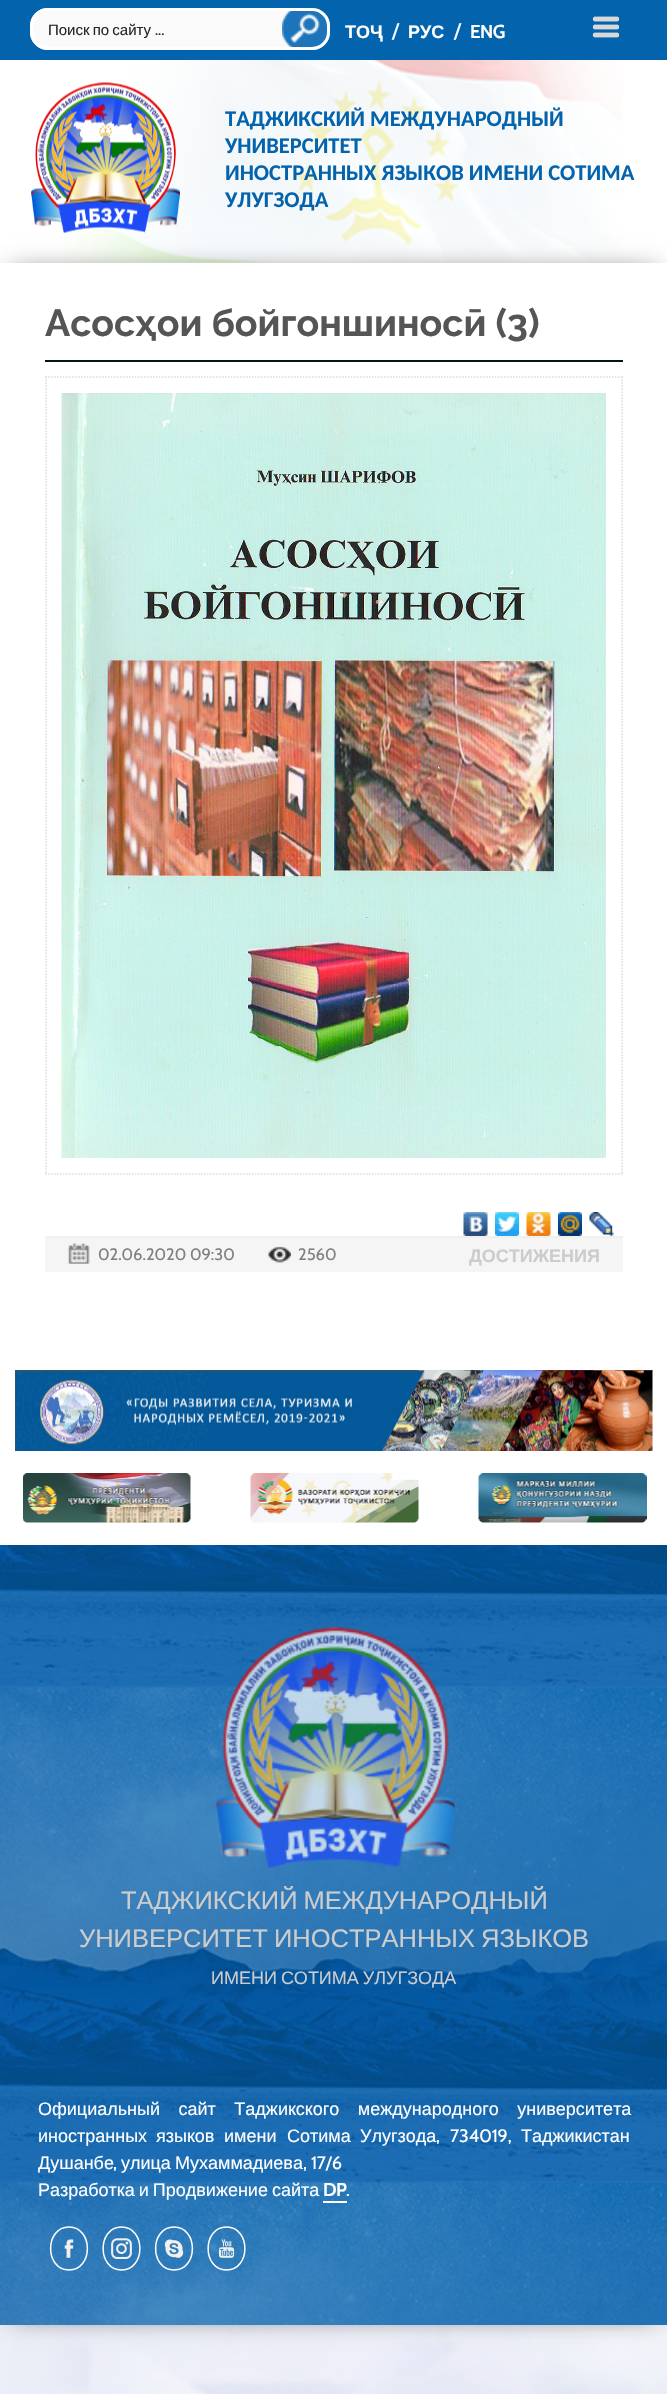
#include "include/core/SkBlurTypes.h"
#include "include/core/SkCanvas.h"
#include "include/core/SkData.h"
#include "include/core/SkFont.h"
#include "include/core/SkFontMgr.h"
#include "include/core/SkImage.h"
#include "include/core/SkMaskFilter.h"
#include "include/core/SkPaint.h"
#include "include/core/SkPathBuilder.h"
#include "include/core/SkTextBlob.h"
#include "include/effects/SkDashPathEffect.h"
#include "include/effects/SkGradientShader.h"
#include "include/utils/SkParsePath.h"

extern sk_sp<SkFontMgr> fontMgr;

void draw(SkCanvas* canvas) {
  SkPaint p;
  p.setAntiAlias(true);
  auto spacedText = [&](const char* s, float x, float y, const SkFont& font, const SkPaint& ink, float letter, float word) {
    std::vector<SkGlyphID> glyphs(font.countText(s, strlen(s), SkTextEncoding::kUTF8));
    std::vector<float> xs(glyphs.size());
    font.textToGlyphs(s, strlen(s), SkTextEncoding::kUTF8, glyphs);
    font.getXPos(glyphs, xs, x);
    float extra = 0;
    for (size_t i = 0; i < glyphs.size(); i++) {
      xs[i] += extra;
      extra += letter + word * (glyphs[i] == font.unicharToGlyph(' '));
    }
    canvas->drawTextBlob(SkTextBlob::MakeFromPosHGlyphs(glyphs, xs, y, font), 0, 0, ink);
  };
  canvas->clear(SK_ColorWHITE);
  canvas->drawImageRect(SkImages::DeferredFromEncodedData(SkData::MakeFromFileName("images/1.png")), SkRect::MakeLTRB(0, 2325, 667, 2394), SkSamplingOptions());
  p.setColor(SkColorSetRGB(3, 99, 173));
  canvas->drawRect(SkRect::MakeLTRB(0, 0, 667, 60), p);
  p.setColor(SkColorSetRGB(250, 250, 250));
  canvas->drawRoundRect(SkRect::MakeLTRB(30, 8, 330, 50), 18, 18, p);
  canvas->drawImageRect(SkImages::DeferredFromEncodedData(SkData::MakeFromFileName("images/2.png")), SkRect::MakeLTRB(282, 8, 327, 50), SkSamplingOptions());
  p.setStyle(SkPaint::kStroke_Style);
  p.setStrokeWidth(3);
  p.setColor(SK_ColorWHITE);
  canvas->drawRoundRect(SkRect::MakeLTRB(31.5f, 9.5f, 328.5f, 48.5f), 16.5f, 16.5f, p);
  canvas->drawImageRect(SkImages::DeferredFromEncodedData(SkData::MakeFromFileName("images/3.png")), SkRect::MakeLTRB(592, 16, 620, 38), SkSamplingOptions());
  canvas->drawImageRect(SkImages::DeferredFromEncodedData(SkData::MakeFromFileName("images/4.png")), SkRect::MakeLTRB(64, 60, 623, 263), SkSamplingOptions());
  canvas->drawImageRect(SkImages::DeferredFromEncodedData(SkData::MakeFromFileName("images/5.png")), SkRect::MakeLTRB(31, 82, 180, 233), SkSamplingOptions());
  p.setStyle(SkPaint::kFill_Style);
  p.setColor(SkColorSetARGB(191, 0, 0, 0));
  p.setMaskFilter(SkMaskFilter::MakeBlur(kNormal_SkBlurStyle, 13.5f));
  canvas->drawRect(SkRect::MakeLTRB(12, 275, 656, 2313), p);
  p.setMaskFilter(nullptr);
  p.setColor(SK_ColorWHITE);
  canvas->drawRect(SkRect::MakeLTRB(0, 263, 667, 2183), p);
  p.setColor(SkColorSetRGB(1, 23, 22));
  canvas->drawRect(SkRect::MakeLTRB(45, 360, 623, 362), p);
  p.setStyle(SkPaint::kStroke_Style);
  p.setStrokeWidth(1.5f);
  p.setColor(SkColorSetRGB(219, 219, 219));
  p.setPathEffect(SkDashPathEffect::Make({{1.5f, 1.5f}}, 0));
  canvas->drawPath(SkPathBuilder().moveTo(45, 377).lineTo(622.5f, 377).detach(), p);
  p.setPathEffect(nullptr);
  p.setPathEffect(SkDashPathEffect::Make({{1.5f, 1.5f}}, 0));
  canvas->drawPath(SkPathBuilder().moveTo(46, 376.5f).lineTo(46, 1174.5f).detach(), p);
  p.setPathEffect(nullptr);
  canvas->drawImageRect(SkImages::DeferredFromEncodedData(SkData::MakeFromFileName("images/6.png")), SkRect::MakeLTRB(61, 393, 606, 1158), SkSamplingOptions());
  p.setPathEffect(SkDashPathEffect::Make({{1.5f, 1.5f}}, 0));
  canvas->drawPath(SkPathBuilder().moveTo(622, 376.5f).lineTo(622, 1174.5f).detach(), p);
  p.setPathEffect(nullptr);
  p.setPathEffect(SkDashPathEffect::Make({{1.5f, 1.5f}}, 0));
  canvas->drawPath(SkPathBuilder().moveTo(45, 1174).lineTo(622.5f, 1174).detach(), p);
  p.setPathEffect(nullptr);
  canvas->drawImageRect(SkImages::DeferredFromEncodedData(SkData::MakeFromFileName("images/7.png")), SkRect::MakeLTRB(463, 1212, 488, 1236), SkSamplingOptions());
  canvas->drawImageRect(SkImages::DeferredFromEncodedData(SkData::MakeFromFileName("images/8.png")), SkRect::MakeLTRB(495, 1212, 519, 1236), SkSamplingOptions());
  canvas->drawImageRect(SkImages::DeferredFromEncodedData(SkData::MakeFromFileName("images/9.png")), SkRect::MakeLTRB(526, 1212, 551, 1236), SkSamplingOptions());
  canvas->drawImageRect(SkImages::DeferredFromEncodedData(SkData::MakeFromFileName("images/10.png")), SkRect::MakeLTRB(558, 1212, 582, 1236), SkSamplingOptions());
  canvas->drawImageRect(SkImages::DeferredFromEncodedData(SkData::MakeFromFileName("images/11.png")), SkRect::MakeLTRB(589, 1212, 614, 1236), SkSamplingOptions());
  p.setStyle(SkPaint::kFill_Style);
  p.setColor(SkColorSetRGB(245, 245, 245));
  canvas->drawRect(SkRect::MakeLTRB(45, 1238, 623, 1272), p);
  p.setColor(SkColorSetRGB(240, 240, 240));
  canvas->drawRect(SkRect::MakeLTRB(45, 1236, 623, 1238), p);
  canvas->drawImageRect(SkImages::DeferredFromEncodedData(SkData::MakeFromFileName("images/12.png")), SkRect::MakeLTRB(67, 1243, 90, 1264), SkSamplingOptions());
  canvas->drawImageRect(SkImages::DeferredFromEncodedData(SkData::MakeFromFileName("images/13.png")), SkRect::MakeLTRB(268, 1246, 291, 1263), SkSamplingOptions());
  canvas->drawImageRect(SkImages::DeferredFromEncodedData(SkData::MakeFromFileName("images/14.png")), SkRect::MakeLTRB(15, 1370, 653, 1451), SkSamplingOptions());
  canvas->drawImageRect(SkImages::DeferredFromEncodedData(SkData::MakeFromFileName("images/15.png")), SkRect::MakeLTRB(23, 1473, 191, 1523), SkSamplingOptions());
  canvas->drawImageRect(SkImages::DeferredFromEncodedData(SkData::MakeFromFileName("images/16.png")), SkRect::MakeLTRB(250, 1473, 419, 1523), SkSamplingOptions());
  canvas->drawImageRect(SkImages::DeferredFromEncodedData(SkData::MakeFromFileName("images/17.png")), SkRect::MakeLTRB(478, 1473, 647, 1523), SkSamplingOptions());
  canvas->drawImageRect(SkImages::DeferredFromEncodedData(SkData::MakeFromFileName("images/18.png")), SkRect::MakeLTRB(0, 1545, 667, 2325), SkSamplingOptions());
  canvas->drawImageRect(SkImages::DeferredFromEncodedData(SkData::MakeFromFileName("images/19.png")), SkRect::MakeLTRB(215, 1627, 455, 1868), SkSamplingOptions());
  p.setColor(SK_ColorWHITE);
  canvas->drawRect(SkRect::MakeLTRB(323, 2201, 347, 2203), p);
  p.setStyle(SkPaint::kStroke_Style);
  canvas->drawPath(SkPathBuilder().moveTo(69, 2227).cubicTo(93.5f, 2227, 93.5f, 2270, 69, 2270).cubicTo(44.5f, 2270, 44.5f, 2227, 69, 2227).close().detach(), p);
  canvas->drawPath(SkPathBuilder().moveTo(121.5f, 2227).cubicTo(146, 2227, 146, 2270, 121.5f, 2270).cubicTo(97, 2270, 97, 2227, 121.5f, 2227).close().detach(), p);
  canvas->drawPath(SkPathBuilder().moveTo(174, 2227).cubicTo(198.5f, 2227, 198.5f, 2270, 174, 2270).cubicTo(149.5f, 2270, 149.5f, 2227, 174, 2227).close().detach(), p);
  canvas->drawPath(SkPathBuilder().moveTo(226.5f, 2227).cubicTo(251, 2227, 251, 2270, 226.5f, 2270).cubicTo(202, 2270, 202, 2227, 226.5f, 2227).close().detach(), p);
  canvas->drawImageRect(SkImages::DeferredFromEncodedData(SkData::MakeFromFileName("images/20.png")), SkRect::MakeLTRB(64, 2239, 74, 2258), SkSamplingOptions());
  canvas->drawImageRect(SkImages::DeferredFromEncodedData(SkData::MakeFromFileName("images/21.png")), SkRect::MakeLTRB(111, 2238, 132, 2259), SkSamplingOptions());
  canvas->drawImageRect(SkImages::DeferredFromEncodedData(SkData::MakeFromFileName("images/22.png")), SkRect::MakeLTRB(164, 2239, 184, 2258), SkSamplingOptions());
  canvas->drawImageRect(SkImages::DeferredFromEncodedData(SkData::MakeFromFileName("images/23.png")), SkRect::MakeLTRB(218, 2239, 235, 2258), SkSamplingOptions());
  SkFont font1(fontMgr->matchFamilyStyle("Liberation Sans", SkFontStyle::Normal()), 15);
  font1.setSubpixel(true);
  p.setStyle(SkPaint::kFill_Style);
  p.setColor(SkColorSetRGB(38, 38, 38));
  spacedText("Поиск по сайту", 48, 35, font1, p, 0, -1);
  SkFont font2(fontMgr->matchFamilyStyle("Cabin", SkFontStyle::Normal()), 15);
  font2.setSubpixel(true);
  canvas->drawString("...", 155, 35, font2, p);
  SkFont font3(fontMgr->matchFamilyStyle("Liberation Sans", SkFontStyle::Bold()), 18);
  font3.setSubpixel(true);
  p.setColor(SK_ColorWHITE);
  canvas->drawString("ТОҶ", 345, 38, font3, p);
  SkFont font4(fontMgr->matchFamilyStyle("Cabin", SkFontStyle::Normal()), 21);
  font4.setSubpixel(true);
  canvas->drawString("/", 392, 38, font4, p);
  canvas->drawString("РУС", 408, 38, font3, p);
  canvas->drawString("/", 454, 38, font4, p);
  SkFont font5(fontMgr->matchFamilyStyle("Cabin", SkFontStyle::Bold()), 18);
  font5.setSubpixel(true);
  canvas->drawString("ENG", 470, 38, font5, p);
  SkFont font6(fontMgr->matchFamilyStyle("Carlito", SkFontStyle::Bold()), 22.5f);
  font6.setSubpixel(true);
  p.setColor(SkColorSetRGB(3, 99, 173));
  canvas->drawString("ТАДЖИКСКИЙ МЕЖДУНАРОДНЫЙ", 225, 126, font6, p);
  canvas->drawString("УНИВЕРСИТЕТ", 225, 153, font6, p);
  canvas->drawString("ИНОСТРАННЫХ ЯЗЫКОВ ИМЕНИ СОТИМА", 225, 180, font6, p);
  canvas->drawString("УЛУГЗОДА", 225, 207, font6, p);
  SkFont font7(fontMgr->matchFamilyStyle("Raleway", SkFontStyle::Bold()), 37.5f);
  font7.setSubpixel(true);
  p.setColor(SkColorSetRGB(85, 85, 85));
  canvas->drawString("Асосҳои бойгоншиносӣ (3)", 45, 336, font7, p);
  SkFont font8(fontMgr->matchFamilyStyle("Cabin", SkFontStyle::Normal()), 16.5f);
  font8.setSubpixel(true);
  p.setColor(SkColorSetRGB(128, 128, 128));
  canvas->drawString("02.06.2020 09:30", 98, 1260, font8, p);
  canvas->drawString("2560", 298, 1260, font8, p);
  p.setColor(SkColorSetRGB(204, 204, 204));
  canvas->drawString("ДОСТИЖЕНИЯ", 469, 1262, font3, p);
  SkFont font9(fontMgr->matchFamilyStyle("Liberation Sans", SkFontStyle::Normal()), 25.5f);
  font9.setSubpixel(true);
  spacedText("ТАДЖИКСКИЙ МЕЖДУНАРОДНЫЙ", 121, 1909, font9, p, 0, -1);
  spacedText("УНИВЕРСИТЕТ ИНОСТРАННЫХ ЯЗЫКОВ", 79, 1947, font9, p, 0, -1);
  SkFont font10(fontMgr->matchFamilyStyle("Liberation Sans", SkFontStyle::Normal()), 18);
  font10.setSubpixel(true);
  spacedText("ИМЕНИ СОТИМА УЛУГЗОДА", 211, 1984, font10, p, 0, -1);
  p.setColor(SK_ColorWHITE);
  spacedText("Официальный сайт Таджикского международного университета", 38, 2115, font10, p, 0, 13.5f);
  canvas->drawString("иностранных", 38, 2142, font10, p);
  canvas->drawString("языков", 156, 2142, font10, p);
  canvas->drawString("имени", 224, 2142, font10, p);
  canvas->drawString("Сотима", 287, 2142, font10, p);
  canvas->drawString("Улугзода", 360, 2142, font10, p);
  SkFont font11(fontMgr->matchFamilyStyle("Cabin", SkFontStyle::Normal()), 18);
  font11.setSubpixel(true);
  spacedText(", 734019,", 436, 2142, font11, p, 0, 6);
  canvas->drawString("Таджикистан", 521, 2142, font10, p);
  canvas->drawString("Душанбе", 38, 2169, font10, p);
  canvas->drawString(",", 113, 2169, font11, p);
  canvas->drawString("улица", 121, 2169, font10, p);
  canvas->drawString("Мухаммадиева", 175, 2169, font10, p);
  canvas->drawString(", 17/6", 303, 2169, font11, p);
  spacedText("Разработка и Продвижение сайта", 38, 2196, font10, p, 0, -1);
  canvas->drawString("DP", 323, 2196, font5, p);
  canvas->drawString(".", 346, 2196, font11, p);
}
